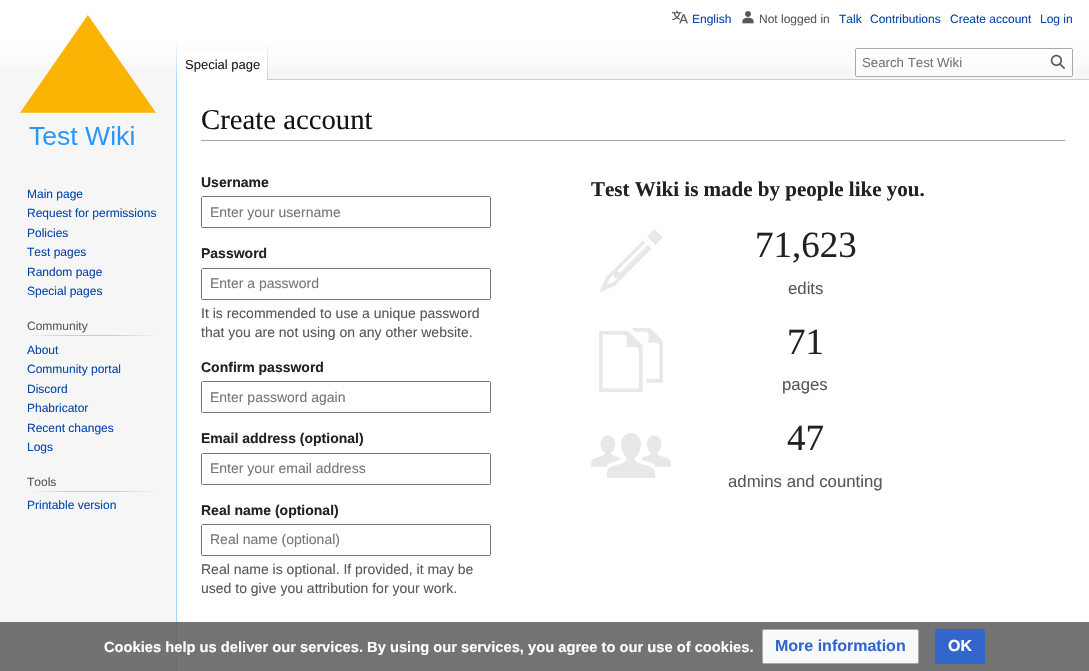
#include "include/core/SkBlurTypes.h"
#include "include/core/SkCanvas.h"
#include "include/core/SkData.h"
#include "include/core/SkFont.h"
#include "include/core/SkFontMgr.h"
#include "include/core/SkImage.h"
#include "include/core/SkMaskFilter.h"
#include "include/core/SkPaint.h"
#include "include/core/SkPathBuilder.h"
#include "include/core/SkTextBlob.h"
#include "include/effects/SkDashPathEffect.h"
#include "include/effects/SkGradientShader.h"
#include "include/utils/SkParsePath.h"

extern sk_sp<SkFontMgr> fontMgr;

void draw(SkCanvas* canvas) {
  SkPaint p;
  p.setAntiAlias(true);
  canvas->clear(SkColorSetRGB(246, 246, 246));
  {
    const SkColor colors[] = {SK_ColorWHITE, SkColorSetRGB(246, 246, 246)};
    const float stops[] = {0.5f, 1};
    const SkPoint ends[] = {{545, 0}, {545, 80}};
    p.setShader(SkGradientShader::MakeLinear(ends, colors, stops, 2, SkTileMode::kClamp));
    p.setAlpha(255);
  }
  canvas->drawRect(SkRect::MakeLTRB(0, 0, 1089, 69), p);
  canvas->drawImageRect(SkImages::DeferredFromEncodedData(SkData::MakeFromFileName("images/1.png")), SkRect::MakeLTRB(672, 10, 688, 24), SkSamplingOptions());
  canvas->drawImageRect(SkImages::DeferredFromEncodedData(SkData::MakeFromFileName("images/2.png")), SkRect::MakeLTRB(742, 11, 754, 24), SkSamplingOptions());
  p.setShader(nullptr);
  p.setColor(SkColorSetRGB(167, 215, 249));
  canvas->drawRect(SkRect::MakeLTRB(176, 79, 177, 671), p);
  {
    const SkColor colors[] = {SkColorSetARGB(0, 167, 215, 249), SkColorSetRGB(167, 215, 249)};
    const float stops[] = {0, 1};
    const SkPoint ends[] = {{177, 40}, {177, 80}};
    p.setShader(SkGradientShader::MakeLinear(ends, colors, stops, 2, SkTileMode::kClamp));
    p.setAlpha(255);
  }
  canvas->drawRect(SkRect::MakeLTRB(176, 40, 177, 80), p);
  p.setShader(nullptr);
  p.setColor(SK_ColorWHITE);
  canvas->drawRect(SkRect::MakeLTRB(177, 51, 267, 80), p);
  {
    const SkColor colors[] = {SK_ColorWHITE, SkColorSetRGB(167, 215, 249)};
    const float stops[] = {0, 1};
    const SkPoint ends[] = {{268, 40}, {268, 80}};
    p.setShader(SkGradientShader::MakeLinear(ends, colors, stops, 2, SkTileMode::kClamp));
    p.setAlpha(255);
  }
  canvas->drawRect(SkRect::MakeLTRB(267, 40, 268, 80), p);
  p.setShader(nullptr);
  p.setColor(SkColorSetARGB(128, 255, 255, 255));
  canvas->drawRoundRect(SkRect::MakeLTRB(855.5f, 48.5f, 1072.5f, 76.5f), 1.5f, 1.5f, p);
  p.setStyle(SkPaint::kStroke_Style);
  p.setStrokeWidth(1);
  p.setColor(SkColorSetRGB(162, 169, 177));
  canvas->drawRoundRect(SkRect::MakeLTRB(855.5f, 48.5f, 1072.5f, 76.5f), 1.5f, 1.5f, p);
  canvas->drawImageRect(SkImages::DeferredFromEncodedData(SkData::MakeFromFileName("images/3.png")), SkRect::MakeLTRB(1050, 54, 1065, 69), SkSamplingOptions());
  canvas->drawImageRect(SkImages::DeferredFromEncodedData(SkData::MakeFromFileName("images/4.png")), SkRect::MakeLTRB(20, 15, 156, 145), SkSamplingOptions());
  p.setStyle(SkPaint::kFill_Style);
  {
    const SkColor colors[] = {SkColorSetRGB(246, 246, 246), SkColorSetRGB(200, 204, 209), SkColorSetRGB(200, 204, 209), SkColorSetRGB(246, 246, 246)};
    const float stops[] = {0, 0.33f, 0.66f, 1};
    const SkPoint ends[] = {{27, 336}, {158, 336}};
    p.setShader(SkGradientShader::MakeLinear(ends, colors, stops, 4, SkTileMode::kClamp));
    p.setAlpha(255);
  }
  canvas->drawRect(SkRect::MakeLTRB(27, 335, 158, 336), p);
  {
    const SkColor colors[] = {SkColorSetRGB(246, 246, 246), SkColorSetRGB(200, 204, 209), SkColorSetRGB(200, 204, 209), SkColorSetRGB(246, 246, 246)};
    const float stops[] = {0, 0.33f, 0.66f, 1};
    const SkPoint ends[] = {{27, 492}, {158, 492}};
    p.setShader(SkGradientShader::MakeLinear(ends, colors, stops, 4, SkTileMode::kClamp));
    p.setAlpha(255);
  }
  canvas->drawRect(SkRect::MakeLTRB(27, 491, 158, 492), p);
  p.setShader(nullptr);
  p.setColor(SK_ColorWHITE);
  canvas->drawRect(SkRect::MakeLTRB(177, 80, 1089, 671), p);
  p.setColor(SkColorSetRGB(167, 215, 249));
  canvas->drawRect(SkRect::MakeLTRB(268, 79, 1089, 80), p);
  p.setColor(SkColorSetRGB(162, 169, 177));
  canvas->drawRect(SkRect::MakeLTRB(201, 140, 1065, 141), p);
  p.setColor(SkColorSetRGB(114, 119, 125));
  canvas->drawPath(SkPathBuilder(SkPathFillType::kEvenOdd).moveTo(203, 196).cubicTo(202, 196, 201, 197, 201, 198).lineTo(201, 226).cubicTo(201, 227, 202, 228, 203, 228).lineTo(489, 228).cubicTo(490, 228, 491, 227, 491, 226).lineTo(491, 198).cubicTo(491, 197, 490, 196, 489, 196).close().moveTo(202, 197).lineTo(202, 227).lineTo(490, 227).lineTo(490, 197).close().detach(), p);
  canvas->drawPath(SkPathBuilder(SkPathFillType::kEvenOdd).moveTo(203, 268).cubicTo(202, 268, 201, 269, 201, 270).lineTo(201, 298).cubicTo(201, 299, 202, 300, 203, 300).lineTo(489, 300).cubicTo(490, 300, 491, 299, 491, 298).lineTo(491, 270).cubicTo(491, 269, 490, 268, 489, 268).close().moveTo(202, 269).lineTo(202, 299).lineTo(490, 299).lineTo(490, 269).close().detach(), p);
  canvas->drawPath(SkPathBuilder(SkPathFillType::kEvenOdd).moveTo(203, 381).cubicTo(202, 381, 201, 382, 201, 383).lineTo(201, 411).cubicTo(201, 412, 202, 413, 203, 413).lineTo(489, 413).cubicTo(490, 413, 491, 412, 491, 411).lineTo(491, 383).cubicTo(491, 382, 490, 381, 489, 381).close().moveTo(202, 382).lineTo(202, 412).lineTo(490, 412).lineTo(490, 382).close().detach(), p);
  canvas->drawPath(SkPathBuilder(SkPathFillType::kEvenOdd).moveTo(203, 453).cubicTo(202, 453, 201, 454, 201, 455).lineTo(201, 483).cubicTo(201, 484, 202, 485, 203, 485).lineTo(489, 485).cubicTo(490, 485, 491, 484, 491, 483).lineTo(491, 455).cubicTo(491, 454, 490, 453, 489, 453).close().moveTo(202, 454).lineTo(202, 484).lineTo(490, 484).lineTo(490, 454).close().detach(), p);
  canvas->drawPath(SkPathBuilder(SkPathFillType::kEvenOdd).moveTo(203, 524).cubicTo(202, 524, 201, 525, 201, 526).lineTo(201, 554).cubicTo(201, 555, 202, 556, 203, 556).lineTo(489, 556).cubicTo(490, 556, 491, 555, 491, 554).lineTo(491, 526).cubicTo(491, 525, 490, 524, 489, 524).close().moveTo(202, 525).lineTo(202, 555).lineTo(490, 555).lineTo(490, 525).close().detach(), p);
  canvas->drawImageRect(SkImages::DeferredFromEncodedData(SkData::MakeFromFileName("images/5.png")), SkRect::MakeLTRB(599, 229, 663, 293), SkSamplingOptions());
  canvas->drawImageRect(SkImages::DeferredFromEncodedData(SkData::MakeFromFileName("images/6.png")), SkRect::MakeLTRB(599, 328, 663, 392), SkSamplingOptions());
  canvas->drawImageRect(SkImages::DeferredFromEncodedData(SkData::MakeFromFileName("images/7.png")), SkRect::MakeLTRB(591, 433, 671, 478), SkSamplingOptions());
  p.setColor(SkColorSetARGB(217, 90, 90, 90));
  canvas->drawRect(SkRect::MakeLTRB(0, 622, 1089, 671), p);
  p.setColor(SkColorSetRGB(248, 249, 250));
  canvas->drawRoundRect(SkRect::MakeLTRB(762.5f, 629.5f, 918.5f, 663.5f), 1.5f, 1.5f, p);
  p.setStyle(SkPaint::kStroke_Style);
  p.setColor(SkColorSetRGB(162, 169, 177));
  canvas->drawRoundRect(SkRect::MakeLTRB(762.5f, 629.5f, 918.5f, 663.5f), 1.5f, 1.5f, p);
  p.setStyle(SkPaint::kFill_Style);
  p.setColor(SkColorSetRGB(51, 102, 204));
  canvas->drawRoundRect(SkRect::MakeLTRB(935.5f, 629.5f, 984.5f, 663.5f), 1.5f, 1.5f, p);
  p.setStyle(SkPaint::kStroke_Style);
  canvas->drawRoundRect(SkRect::MakeLTRB(935.5f, 629.5f, 984.5f, 663.5f), 1.5f, 1.5f, p);
  SkFont font1(fontMgr->matchFamilyStyle("Liberation Sans", SkFontStyle::Normal()), 12);
  font1.setSubpixel(true);
  p.setStyle(SkPaint::kFill_Style);
  p.setColor(SkColorSetRGB(6, 69, 173));
  canvas->drawString("English", 692, 23, font1, p);
  p.setColor(SkColorSetRGB(84, 89, 93));
  canvas->drawString("Not logged in", 759, 23, font1, p);
  p.setColor(SkColorSetRGB(6, 69, 173));
  canvas->drawString("Talk", 839, 23, font1, p);
  canvas->drawString("Contributions", 870, 23, font1, p);
  canvas->drawString("Create account", 950, 23, font1, p);
  canvas->drawString("Log in", 1040, 23, font1, p);
  SkFont font2(fontMgr->matchFamilyStyle("Liberation Sans", SkFontStyle::Normal()), 13);
  font2.setSubpixel(true);
  p.setColor(SkColorSetRGB(32, 33, 34));
  canvas->drawString("Special page", 185, 69, font2, p);
  SkFont font3(fontMgr->matchFamilyStyle("Liberation Sans", SkFontStyle::Normal()), 13.25f);
  font3.setSubpixel(true);
  p.setColor(SkColorSetRGB(114, 119, 125));
  canvas->drawString("Search Test Wiki", 862, 67, font3, p);
  p.setColor(SkColorSetRGB(6, 69, 173));
  canvas->drawString("Main page", 27, 198, font1, p);
  canvas->drawString("Request for permissions", 27, 217, font1, p);
  canvas->drawString("Policies", 27, 237, font1, p);
  canvas->drawString("Test pages", 27, 256, font1, p);
  canvas->drawString("Random page", 27, 276, font1, p);
  canvas->drawString("Special pages", 27, 295, font1, p);
  p.setColor(SkColorSetRGB(84, 89, 93));
  canvas->drawString("Community", 27, 330, font1, p);
  p.setColor(SkColorSetRGB(6, 69, 173));
  canvas->drawString("About", 27, 354, font1, p);
  canvas->drawString("Community portal", 27, 373, font1, p);
  canvas->drawString("Discord", 27, 393, font1, p);
  canvas->drawString("Phabricator", 27, 412, font1, p);
  canvas->drawString("Recent changes", 27, 432, font1, p);
  canvas->drawString("Logs", 27, 451, font1, p);
  p.setColor(SkColorSetRGB(84, 89, 93));
  canvas->drawString("Tools", 27, 486, font1, p);
  p.setColor(SkColorSetRGB(6, 69, 173));
  canvas->drawString("Printable version", 27, 509, font1, p);
  SkFont font4(fontMgr->matchFamilyStyle("Liberation Serif", SkFontStyle::Normal()), 28.75f);
  font4.setSubpixel(true);
  p.setColor(SkColorSetRGB(16, 20, 24));
  canvas->drawString("Create account", 201, 129, font4, p);
  SkFont font5(fontMgr->matchFamilyStyle("Liberation Sans", SkFontStyle::Bold()), 14);
  font5.setSubpixel(true);
  p.setColor(SkColorSetRGB(32, 33, 34));
  canvas->drawString("Username", 201, 187, font5, p);
  SkFont font6(fontMgr->matchFamilyStyle("Liberation Sans", SkFontStyle::Normal()), 14);
  font6.setSubpixel(true);
  p.setColor(SkColorSetRGB(114, 119, 125));
  canvas->drawString("Enter your username", 210, 217, font6, p);
  p.setColor(SkColorSetRGB(32, 33, 34));
  canvas->drawString("Password", 201, 258, font5, p);
  p.setColor(SkColorSetRGB(114, 119, 125));
  canvas->drawString("Enter a password", 210, 288, font6, p);
  p.setColor(SkColorSetRGB(84, 89, 93));
  canvas->drawString("It is recommended to use a unique password", 201, 318, font6, p);
  canvas->drawString("that you are not using on any other website.", 201, 337, font6, p);
  p.setColor(SkColorSetRGB(32, 33, 34));
  canvas->drawString("Confirm password", 201, 372, font5, p);
  p.setColor(SkColorSetRGB(114, 119, 125));
  canvas->drawString("Enter password again", 210, 402, font6, p);
  p.setColor(SkColorSetRGB(32, 33, 34));
  canvas->drawString("Email address (optional)", 201, 443, font5, p);
  p.setColor(SkColorSetRGB(114, 119, 125));
  canvas->drawString("Enter your email address", 210, 473, font6, p);
  p.setColor(SkColorSetRGB(32, 33, 34));
  canvas->drawString("Real name (optional)", 201, 515, font5, p);
  p.setColor(SkColorSetRGB(114, 119, 125));
  canvas->drawString("Real name (optional)", 210, 544, font6, p);
  p.setColor(SkColorSetRGB(84, 89, 93));
  canvas->drawString("Real name is optional. If provided, it may be", 201, 574, font6, p);
  canvas->drawString("used to give you attribution for your work.", 201, 593, font6, p);
  SkFont font7(fontMgr->matchFamilyStyle("Liberation Serif", SkFontStyle::Bold()), 21);
  font7.setSubpixel(true);
  p.setColor(SkColorSetRGB(32, 33, 34));
  canvas->drawString("Test Wiki is made by people like you.", 591, 196, font7, p);
  SkFont font8(fontMgr->matchFamilyStyle("Liberation Serif", SkFontStyle::Normal()), 37);
  font8.setSubpixel(true);
  canvas->drawString("71,623", 755, 257, font8, p);
  SkFont font9(fontMgr->matchFamilyStyle("Liberation Sans", SkFontStyle::Normal()), 16.75f);
  font9.setSubpixel(true);
  p.setColor(SkColorSetRGB(84, 89, 93));
  canvas->drawString("edits", 788, 294, font9, p);
  p.setColor(SkColorSetRGB(32, 33, 34));
  canvas->drawString("71", 787, 354, font8, p);
  p.setColor(SkColorSetRGB(84, 89, 93));
  canvas->drawString("pages", 782, 390, font9, p);
  p.setColor(SkColorSetRGB(32, 33, 34));
  canvas->drawString("47", 787, 450, font8, p);
  p.setColor(SkColorSetRGB(84, 89, 93));
  canvas->drawString("admins and counting", 728, 487, font9, p);
  SkFont font10(fontMgr->matchFamilyStyle("Liberation Sans", SkFontStyle::Bold()), 14.7f);
  font10.setSubpixel(true);
  p.setColor(SK_ColorWHITE);
  canvas->drawString("Cookies help us deliver our services. By using our services, you agree to our use of cookies.", 104, 652, font10, p);
  SkFont font11(fontMgr->matchFamilyStyle("Liberation Sans", SkFontStyle::Bold()), 16);
  font11.setSubpixel(true);
  p.setColor(SkColorSetRGB(51, 102, 204));
  canvas->drawString("More information", 775, 651, font11, p);
  p.setColor(SK_ColorWHITE);
  canvas->drawString("OK", 948, 651, font11, p);
}
